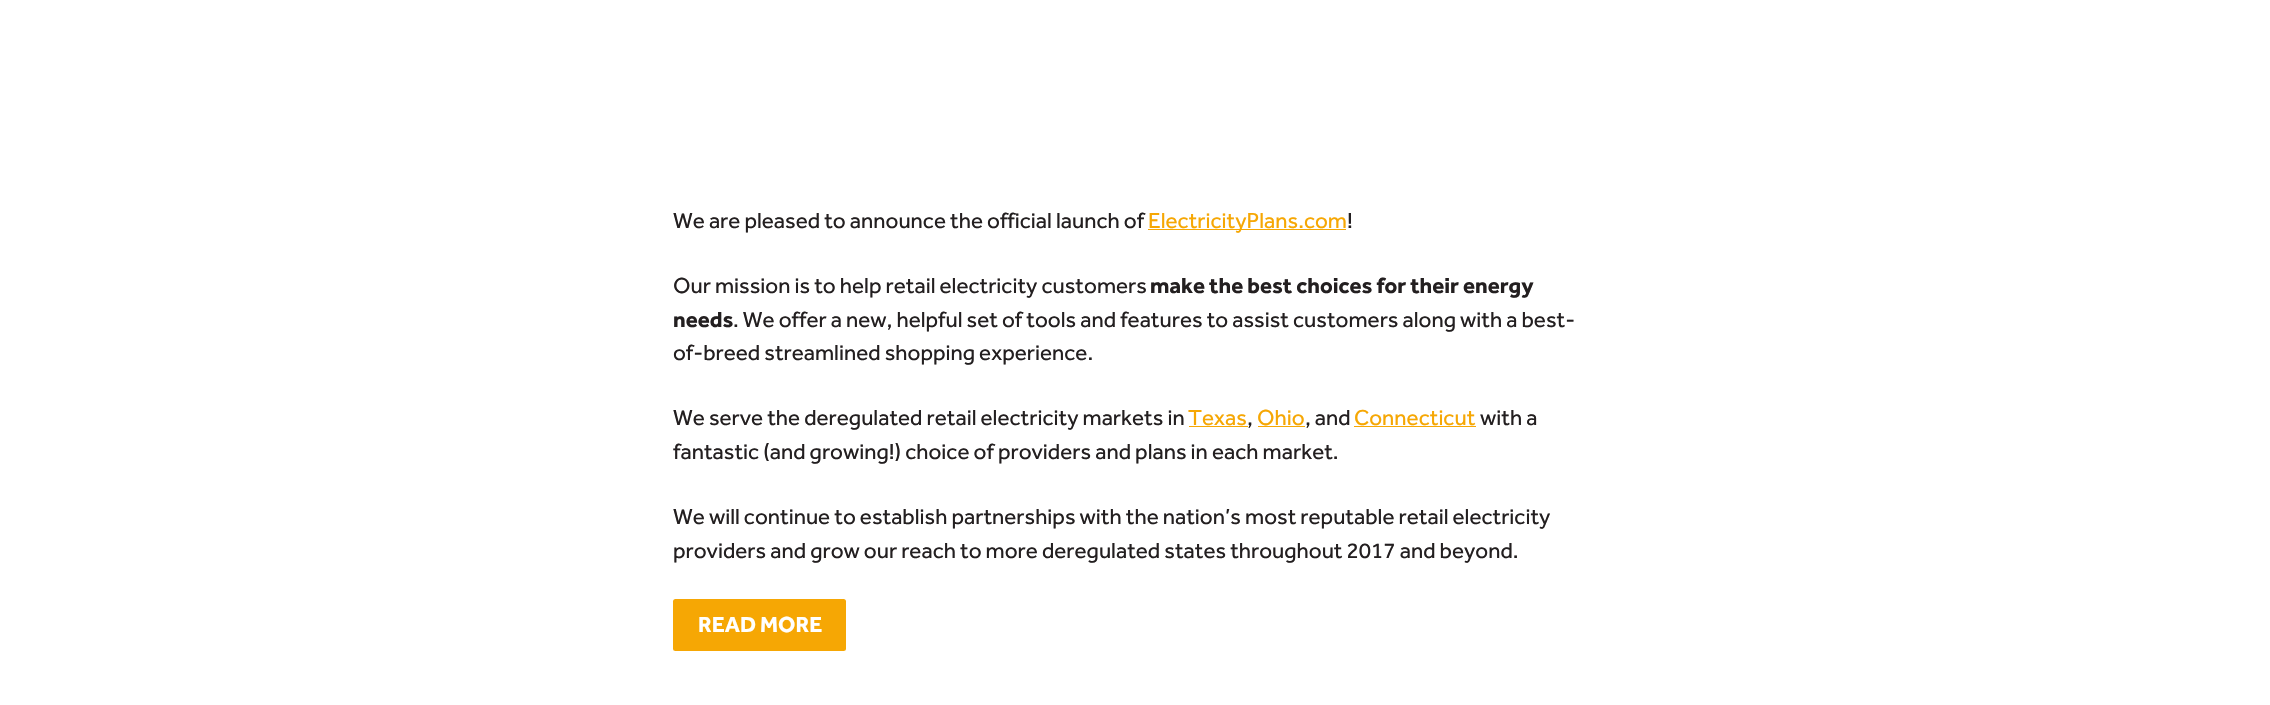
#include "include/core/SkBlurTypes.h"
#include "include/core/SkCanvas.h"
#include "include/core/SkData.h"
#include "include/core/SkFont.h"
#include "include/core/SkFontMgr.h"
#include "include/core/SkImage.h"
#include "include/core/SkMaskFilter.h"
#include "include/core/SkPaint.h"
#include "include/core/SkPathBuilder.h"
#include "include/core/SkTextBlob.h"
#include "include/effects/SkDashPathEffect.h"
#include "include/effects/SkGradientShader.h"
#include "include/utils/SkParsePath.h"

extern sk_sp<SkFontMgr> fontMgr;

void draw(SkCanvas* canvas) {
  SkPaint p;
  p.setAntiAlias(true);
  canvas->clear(SK_ColorWHITE);
  p.setColor(SkColorSetRGB(246, 167, 4));
  canvas->drawRect(SkRect::MakeLTRB(1148, 229, 1346, 230), p);
  canvas->drawRect(SkRect::MakeLTRB(1189, 426, 1248, 427), p);
  canvas->drawRect(SkRect::MakeLTRB(1258, 426, 1305, 427), p);
  canvas->drawRect(SkRect::MakeLTRB(1354, 426, 1476, 427), p);
  canvas->drawRoundRect(SkRect::MakeLTRB(673, 599, 846, 651), 2.5f, 2.5f, p);
  SkFont font1(fontMgr->matchFamilyStyle("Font", SkFontStyle::Normal()), 22.5f);
  font1.setSubpixel(true);
  p.setColor(SkColorSetRGB(35, 31, 32));
  canvas->drawString("We are pleased to announce the official launch of", 673, 228, font1, p);
  p.setColor(SkColorSetRGB(246, 167, 4));
  canvas->drawString("ElectricityPlans.com", 1148, 228, font1, p);
  p.setColor(SkColorSetRGB(35, 31, 32));
  canvas->drawString("!", 1347, 228, font1, p);
  canvas->drawString("Our mission is to help retail electricity customers", 673, 293, font1, p);
  SkFont font2(fontMgr->matchFamilyStyle("Font", SkFontStyle::Bold()), 22.5f);
  font2.setSubpixel(true);
  canvas->drawString("make the best choices for their energy", 1150, 293, font2, p);
  canvas->drawString("needs", 673, 327, font2, p);
  canvas->drawString(". We offer a new, helpful set of tools and features to assist customers along with a best-", 733, 327, font1, p);
  canvas->drawString("of-breed streamlined shopping experience.", 673, 360, font1, p);
  canvas->drawString("We serve the deregulated retail electricity markets in", 673, 425, font1, p);
  p.setColor(SkColorSetRGB(246, 167, 4));
  canvas->drawString("Texas", 1188, 425, font1, p);
  p.setColor(SkColorSetRGB(35, 31, 32));
  canvas->drawString(",", 1247, 425, font1, p);
  p.setColor(SkColorSetRGB(246, 167, 4));
  canvas->drawString("Ohio", 1257, 425, font1, p);
  p.setColor(SkColorSetRGB(35, 31, 32));
  canvas->drawString(", and", 1305, 425, font1, p);
  p.setColor(SkColorSetRGB(246, 167, 4));
  canvas->drawString("Connecticut", 1354, 425, font1, p);
  p.setColor(SkColorSetRGB(35, 31, 32));
  canvas->drawString("with a", 1480, 425, font1, p);
  canvas->drawString("fantastic (and growing!) choice of providers and plans in each market.", 673, 459, font1, p);
  canvas->drawString("We will continue to establish partnerships with the nation’s most reputable retail electricity", 673, 524, font1, p);
  canvas->drawString("providers and grow our reach to more deregulated states throughout 2017 and beyond.", 673, 558, font1, p);
  p.setColor(SK_ColorWHITE);
  canvas->drawString("READ MORE", 698, 632, font2, p);
}
